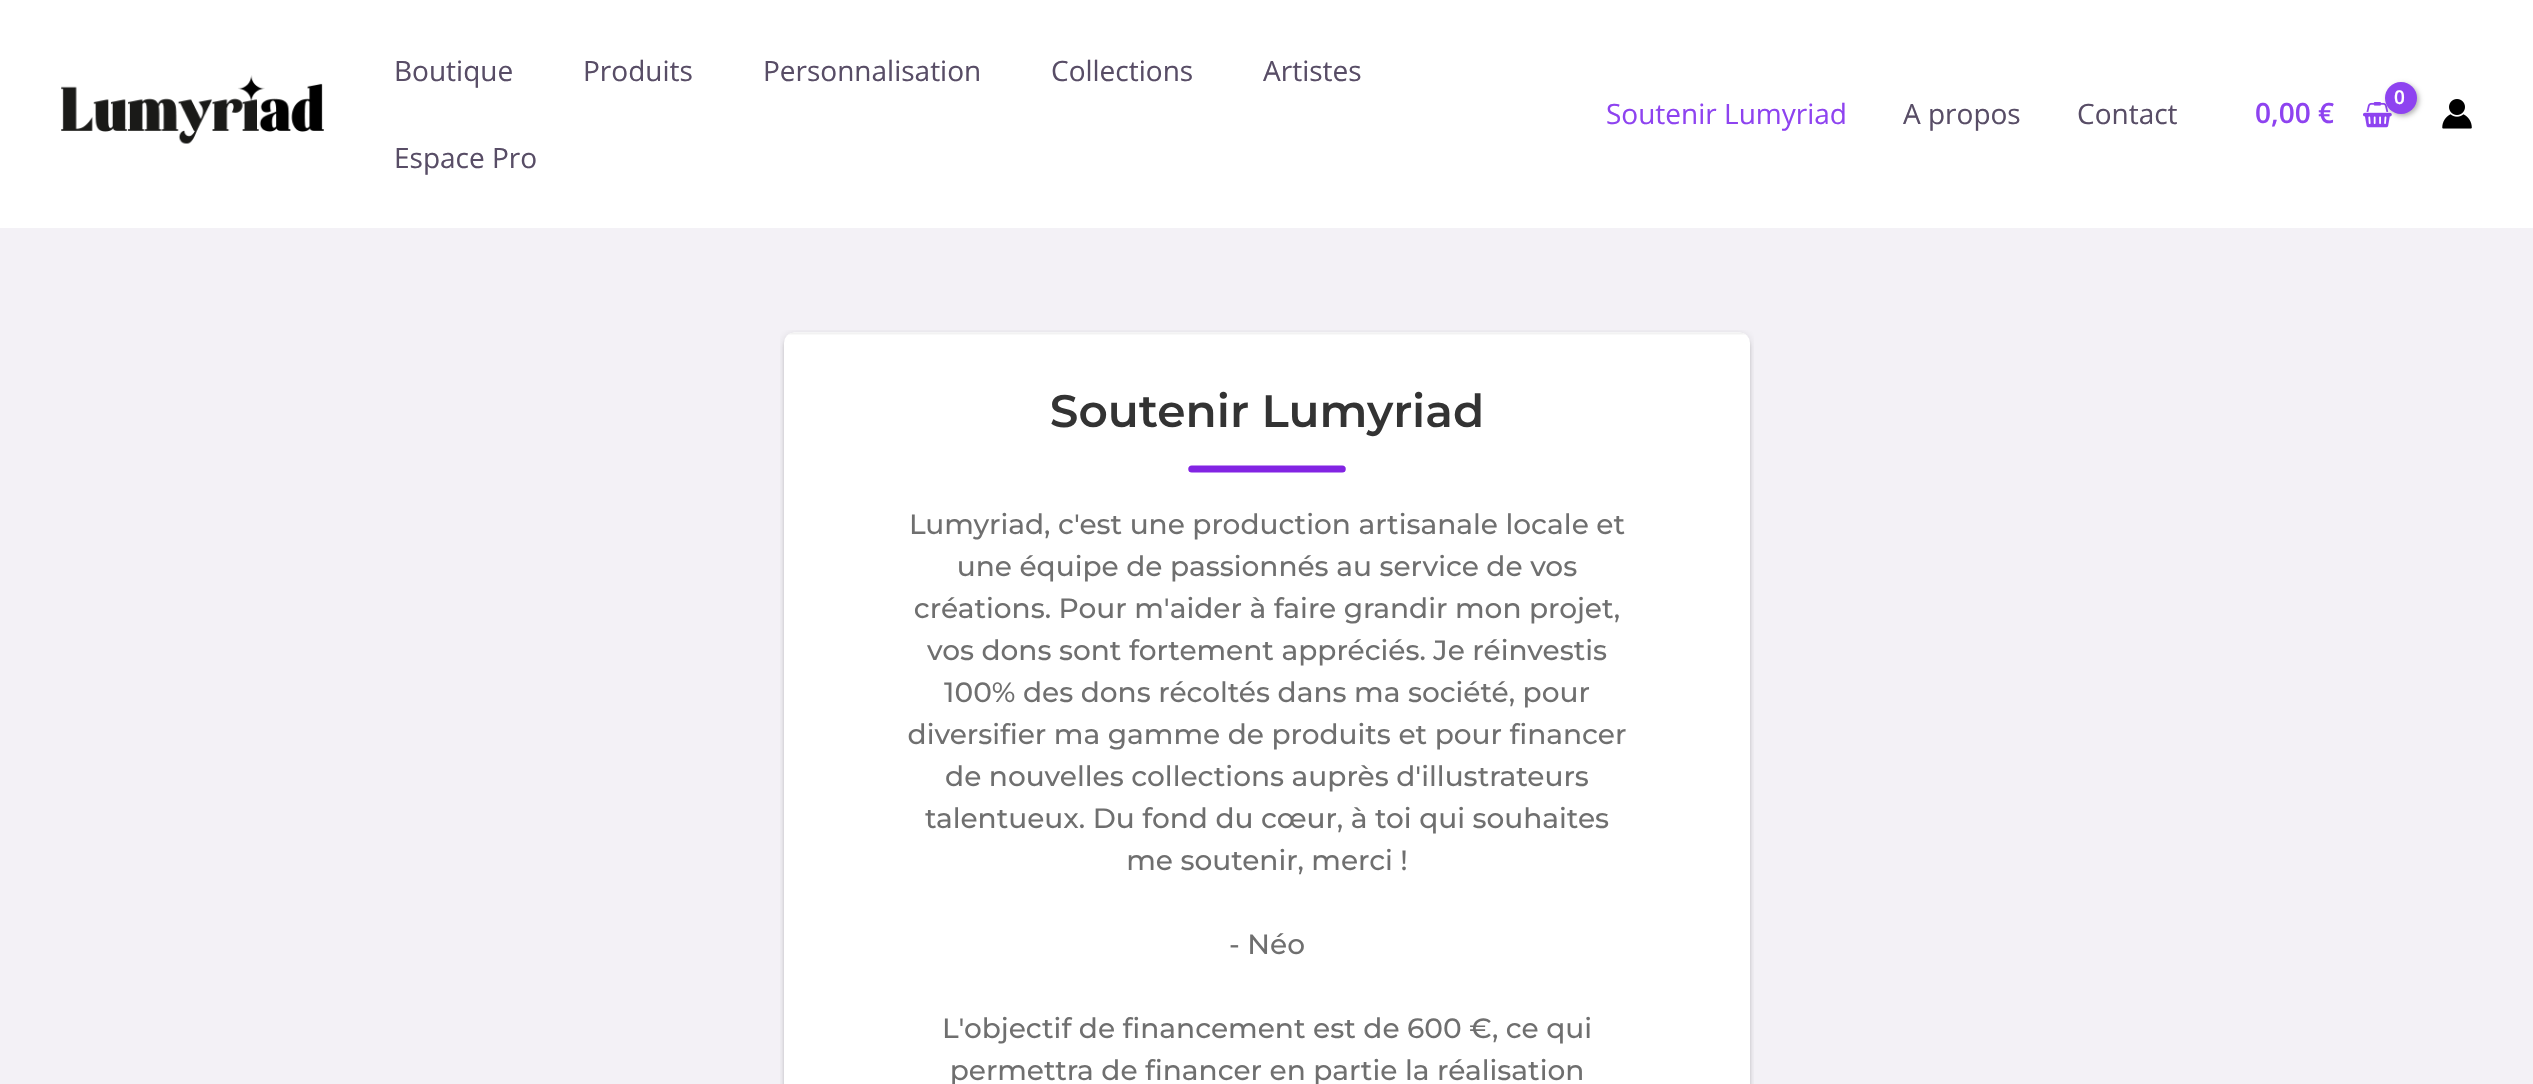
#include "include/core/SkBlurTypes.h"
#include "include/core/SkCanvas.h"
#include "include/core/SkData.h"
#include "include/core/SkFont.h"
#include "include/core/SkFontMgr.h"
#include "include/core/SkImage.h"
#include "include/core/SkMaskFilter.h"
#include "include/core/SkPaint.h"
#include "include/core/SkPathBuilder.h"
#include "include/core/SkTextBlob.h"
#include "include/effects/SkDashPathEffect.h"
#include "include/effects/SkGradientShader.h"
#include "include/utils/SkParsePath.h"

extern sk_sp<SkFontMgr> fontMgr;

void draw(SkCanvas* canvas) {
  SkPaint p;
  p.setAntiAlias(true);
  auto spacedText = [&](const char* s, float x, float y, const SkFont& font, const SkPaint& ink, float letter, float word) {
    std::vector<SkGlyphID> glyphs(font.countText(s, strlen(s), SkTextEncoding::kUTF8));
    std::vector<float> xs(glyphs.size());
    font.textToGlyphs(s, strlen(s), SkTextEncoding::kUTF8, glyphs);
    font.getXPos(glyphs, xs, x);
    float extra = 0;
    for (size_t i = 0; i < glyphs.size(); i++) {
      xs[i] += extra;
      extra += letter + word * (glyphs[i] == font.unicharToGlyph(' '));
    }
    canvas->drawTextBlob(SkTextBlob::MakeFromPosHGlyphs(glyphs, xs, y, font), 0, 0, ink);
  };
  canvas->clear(SkColorSetRGB(243, 241, 246));
  p.setColor(SK_ColorWHITE);
  canvas->drawRect(SkRect::MakeLTRB(0, 0, 2533, 228), p);
  canvas->drawImageRect(SkImages::DeferredFromEncodedData(SkData::MakeFromFileName("images/1.png")), SkRect::MakeLTRB(61, 75, 324, 144), SkSamplingOptions());
  canvas->drawImageRect(SkImages::DeferredFromEncodedData(SkData::MakeFromFileName("images/2.png")), SkRect::MakeLTRB(2363, 102, 2392, 128), SkSamplingOptions());
  p.setColor(SkColorSetARGB(77, 0, 0, 0));
  p.setMaskFilter(SkMaskFilter::MakeBlur(kNormal_SkBlurStyle, 2.5f));
  canvas->drawRoundRect(SkRect::MakeLTRB(2387, 84, 2419, 116), 16, 16, p);
  p.setMaskFilter(nullptr);
  p.setColor(SkColorSetRGB(142, 67, 240));
  canvas->drawCircle(2401, 98, 16, p);
  canvas->drawImageRect(SkImages::DeferredFromEncodedData(SkData::MakeFromFileName("images/3.png")), SkRect::MakeLTRB(2442, 99, 2472, 129), SkSamplingOptions());
  canvas->drawImageRect(SkImages::DeferredFromEncodedData(SkData::MakeFromFileName("images/4.png")), SkRect::MakeLTRB(780, 330, 1754, 1084), SkSamplingOptions());
  SkFont font1(fontMgr->matchFamilyStyle("Open Sans", SkFontStyle::Normal()), 28);
  font1.setSubpixel(true);
  p.setColor(SkColorSetRGB(88, 77, 102));
  canvas->drawString("Boutique", 394, 81, font1, p);
  canvas->drawString("Produits", 583, 81, font1, p);
  canvas->drawString("Personnalisation", 763, 81, font1, p);
  canvas->drawString("Collections", 1051, 81, font1, p);
  canvas->drawString("Artistes", 1263, 81, font1, p);
  canvas->drawString("Espace Pro", 394, 168, font1, p);
  p.setColor(SkColorSetRGB(142, 67, 240));
  canvas->drawString("Soutenir Lumyriad", 1606, 124, font1, p);
  p.setColor(SkColorSetRGB(88, 77, 102));
  canvas->drawString("A propos", 1903, 124, font1, p);
  canvas->drawString("Contact", 2077, 124, font1, p);
  SkFont font2(fontMgr->matchFamilyStyle("Open Sans", SkFontStyle(600, SkFontStyle::kNormal_Width, SkFontStyle::kUpright_Slant)), 19);
  font2.setSubpixel(true);
  p.setColor(SK_ColorWHITE);
  spacedText("0", 2394, 104, font2, p, -1, 0);
  SkFont font3(fontMgr->matchFamilyStyle("Open Sans", SkFontStyle(600, SkFontStyle::kNormal_Width, SkFontStyle::kUpright_Slant)), 28);
  font3.setSubpixel(true);
  p.setColor(SkColorSetRGB(142, 67, 240));
  canvas->drawString("0,00 €", 2255, 123, font3, p);
}
